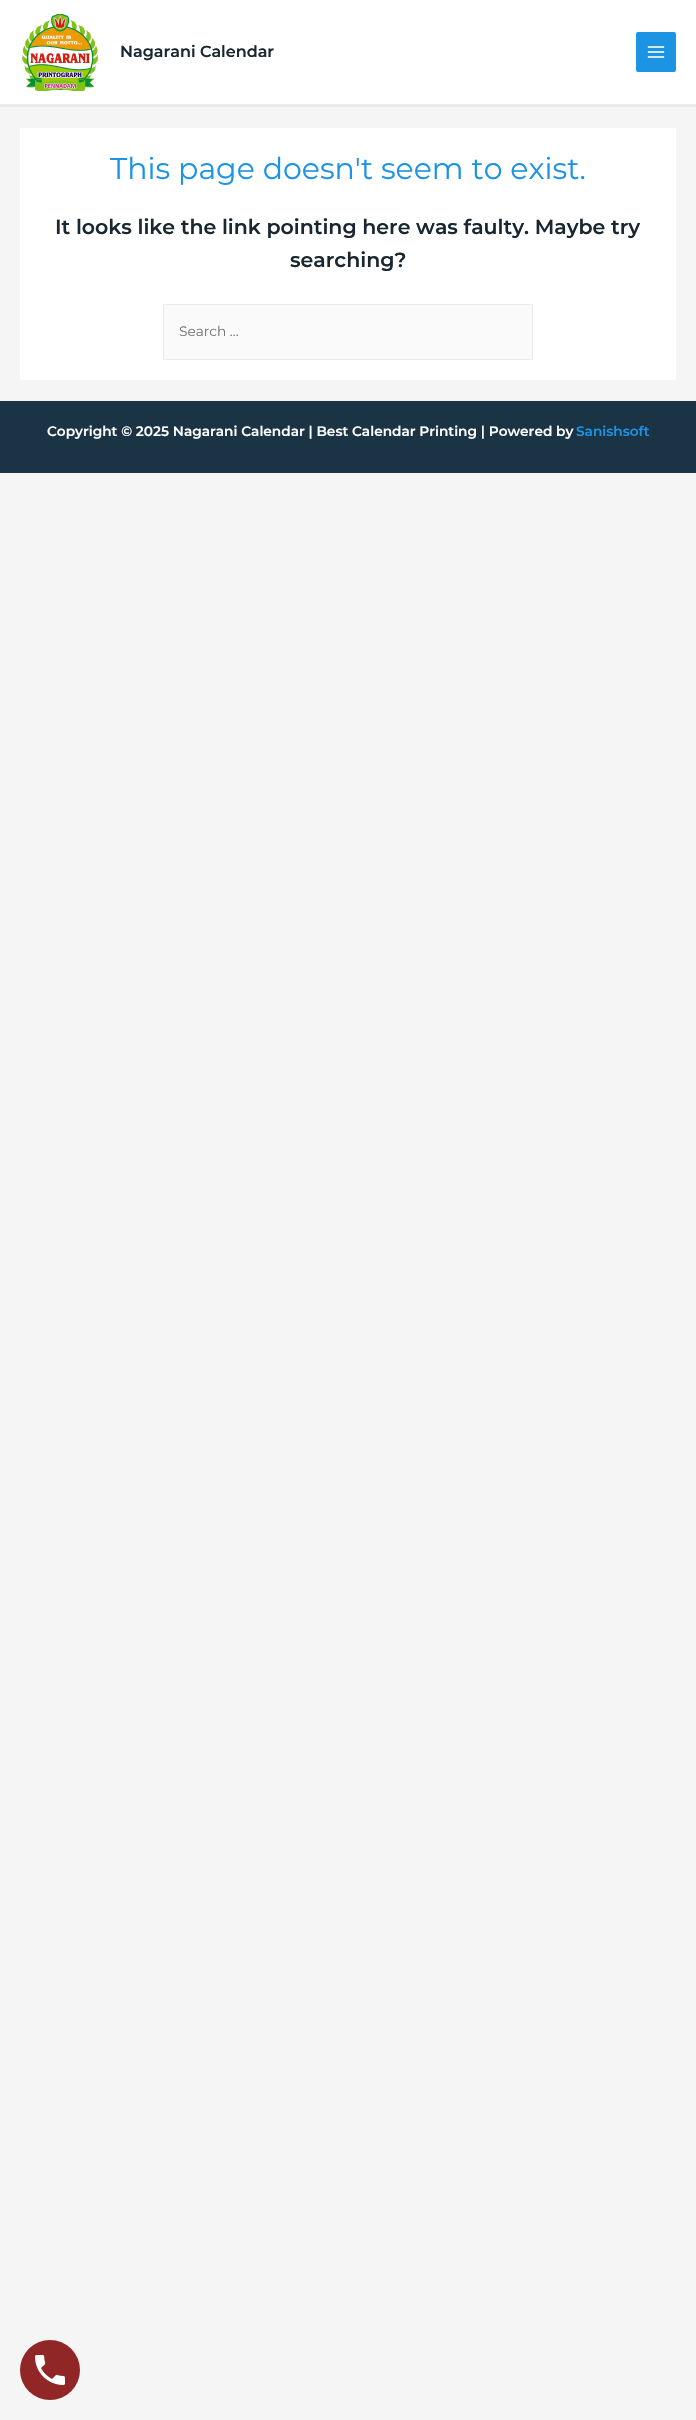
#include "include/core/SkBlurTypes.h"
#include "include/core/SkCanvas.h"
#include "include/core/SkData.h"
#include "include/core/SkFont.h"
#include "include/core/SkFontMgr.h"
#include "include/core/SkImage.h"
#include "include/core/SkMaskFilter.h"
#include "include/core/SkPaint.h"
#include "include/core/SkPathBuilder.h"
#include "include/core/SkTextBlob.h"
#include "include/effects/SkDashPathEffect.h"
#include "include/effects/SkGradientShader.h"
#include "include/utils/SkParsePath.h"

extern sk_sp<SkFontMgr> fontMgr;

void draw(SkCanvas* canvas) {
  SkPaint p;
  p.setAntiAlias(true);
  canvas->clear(SkColorSetRGB(245, 245, 245));
  p.setColor(SK_ColorWHITE);
  canvas->drawRect(SkRect::MakeLTRB(0, 0, 696, 104), p);
  p.setColor(SkColorSetRGB(234, 234, 234));
  canvas->drawRect(SkRect::MakeLTRB(0, 104, 696, 107), p);
  canvas->drawImageRect(SkImages::DeferredFromEncodedData(SkData::MakeFromFileName("images/1.png")), SkRect::MakeLTRB(22, 14, 99, 91), SkSamplingOptions());
  p.setColor(SkColorSetRGB(28, 147, 227));
  canvas->drawRoundRect(SkRect::MakeLTRB(636, 32, 676, 72), 2, 2, p);
  canvas->drawImageRect(SkImages::DeferredFromEncodedData(SkData::MakeFromFileName("images/2.png")), SkRect::MakeLTRB(647, 46, 665, 58), SkSamplingOptions());
  p.setColor(SK_ColorWHITE);
  canvas->drawRect(SkRect::MakeLTRB(20, 128, 676, 380), p);
  p.setColor(SkColorSetRGB(250, 250, 250));
  canvas->drawRoundRect(SkRect::MakeLTRB(163.5f, 304.5f, 532.5f, 359.5f), 1.5f, 1.5f, p);
  p.setStyle(SkPaint::kStroke_Style);
  p.setStrokeWidth(1);
  p.setColor(SkColorSetRGB(234, 234, 234));
  canvas->drawRoundRect(SkRect::MakeLTRB(163.5f, 304.5f, 532.5f, 359.5f), 1.5f, 1.5f, p);
  p.setStyle(SkPaint::kFill_Style);
  p.setColor(SkColorSetRGB(26, 52, 70));
  canvas->drawRect(SkRect::MakeLTRB(0, 401, 696, 473), p);
  p.setColor(SkColorSetRGB(145, 38, 38));
  canvas->drawCircle(50, 2370, 30, p);
  canvas->drawImageRect(SkImages::DeferredFromEncodedData(SkData::MakeFromFileName("images/3.png")), SkRect::MakeLTRB(35, 2355, 65, 2385), SkSamplingOptions());
  SkFont font1(fontMgr->matchFamilyStyle("Montserrat", SkFontStyle(600, SkFontStyle::kNormal_Width, SkFontStyle::kUpright_Slant)), 16);
  font1.setSubpixel(true);
  p.setColor(SkColorSetRGB(25, 39, 48));
  canvas->drawString("Nagarani Calendar", 120, 57, font1, p);
  SkFont font2(fontMgr->matchFamilyStyle("Montserrat", SkFontStyle::Normal()), 30);
  font2.setSubpixel(true);
  p.setColor(SkColorSetRGB(28, 147, 227));
  canvas->drawString("This page doesn't seem to exist.", 110, 179, font2, p);
  SkFont font3(fontMgr->matchFamilyStyle("Montserrat", SkFontStyle(600, SkFontStyle::kNormal_Width, SkFontStyle::kUpright_Slant)), 20.5f);
  font3.setSubpixel(true);
  p.setColor(SkColorSetRGB(25, 39, 48));
  canvas->drawString("It looks like the link pointing here was faulty. Maybe try", 55, 234, font3, p);
  canvas->drawString("searching?", 290, 267, font3, p);
  SkFont font4(fontMgr->matchFamilyStyle("Montserrat", SkFontStyle::Normal()), 13.7f);
  font4.setSubpixel(true);
  p.setColor(SkColorSetRGB(117, 117, 117));
  canvas->drawString("Search …", 179, 336, font4, p);
  SkFont font5(fontMgr->matchFamilyStyle("Montserrat", SkFontStyle(600, SkFontStyle::kNormal_Width, SkFontStyle::kUpright_Slant)), 13.7f);
  font5.setSubpixel(true);
  p.setColor(SK_ColorWHITE);
  canvas->drawString("Copyright © 2025 Nagarani Calendar | Best Calendar Printing | Powered by", 47, 436, font5, p);
  p.setColor(SkColorSetRGB(28, 147, 227));
  canvas->drawString("Sanishsoft", 576, 436, font5, p);
}
